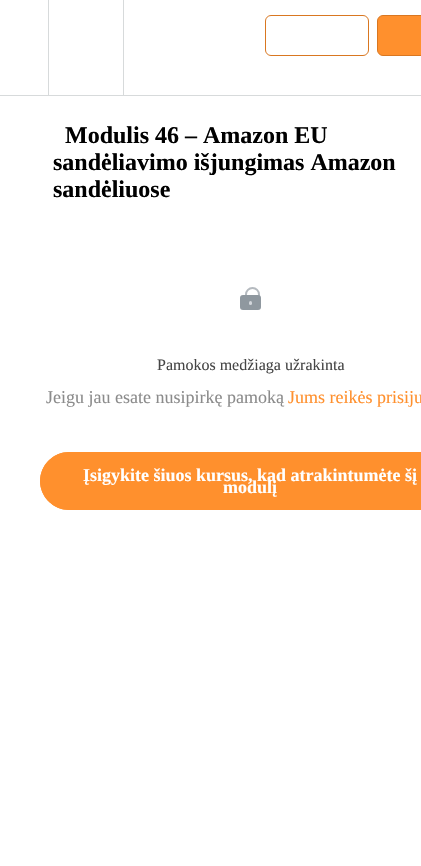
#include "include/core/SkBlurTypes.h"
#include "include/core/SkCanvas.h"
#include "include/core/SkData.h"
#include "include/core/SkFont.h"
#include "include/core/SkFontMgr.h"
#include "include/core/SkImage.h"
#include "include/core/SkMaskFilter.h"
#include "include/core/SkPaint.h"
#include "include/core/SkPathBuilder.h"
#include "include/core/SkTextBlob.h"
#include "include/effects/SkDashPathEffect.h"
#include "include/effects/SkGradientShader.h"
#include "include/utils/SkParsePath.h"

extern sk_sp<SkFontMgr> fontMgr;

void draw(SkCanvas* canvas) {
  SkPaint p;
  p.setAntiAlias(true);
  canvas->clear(SK_ColorWHITE);
  p.setColor(SkColorSetRGB(215, 218, 219));
  canvas->drawRect(SkRect::MakeLTRB(0, 95, 421, 96), p);
  canvas->drawRect(SkRect::MakeLTRB(123, 0, 124, 95), p);
  canvas->drawRect(SkRect::MakeLTRB(48, 0, 49, 95), p);
  p.setStyle(SkPaint::kStroke_Style);
  p.setStrokeWidth(1);
  p.setColor(SkColorSetRGB(217, 119, 33));
  canvas->drawRoundRect(SkRect::MakeLTRB(265.5f, 15.5f, 368.5f, 55.5f), 5.5f, 5.5f, p);
  p.setStyle(SkPaint::kFill_Style);
  p.setColor(SkColorSetRGB(255, 144, 45));
  canvas->drawRoundRect(SkRect::MakeLTRB(377.5f, 15.5f, 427.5f, 55.5f), 5.5f, 5.5f, p);
  p.setStyle(SkPaint::kStroke_Style);
  p.setColor(SkColorSetRGB(217, 119, 33));
  canvas->drawRoundRect(SkRect::MakeLTRB(377.5f, 15.5f, 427.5f, 55.5f), 5.5f, 5.5f, p);
  p.setStrokeWidth(2);
  p.setColor(SkColorSetRGB(181, 186, 191));
  canvas->drawRoundRect(SkRect::MakeLTRB(246, 288, 259, 308), 6.5f, 6.5f, p);
  p.setStyle(SkPaint::kFill_Style);
  p.setColor(SkColorSetRGB(143, 152, 159));
  canvas->drawRoundRect(SkRect::MakeLTRB(240, 295, 261, 310), 3, 3, p);
  p.setColor(SkColorSetRGB(211, 215, 220));
  canvas->drawRoundRect(SkRect::MakeLTRB(249, 301, 252, 305), 1.5f, 1.5f, p);
  p.setColor(SkColorSetRGB(255, 144, 45));
  canvas->drawPath(SkPathBuilder().moveTo(69, 452).lineTo(421, 452).lineTo(421, 510).lineTo(69, 510).cubicTo(53, 510, 40, 497, 40, 481).cubicTo(40, 465, 53, 452, 69, 452).close().detach(), p);
  p.setStyle(SkPaint::kStroke_Style);
  p.setStrokeWidth(1);
  canvas->drawRoundRect(SkRect::MakeLTRB(40.5f, 452.5f, 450.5f, 509.5f), 28.5f, 28.5f, p);
  SkFont font1(fontMgr->matchFamilyStyle("Liberation Serif", SkFontStyle::Bold()), 24);
  font1.setSubpixel(true);
  p.setStyle(SkPaint::kFill_Style);
  p.setColor(SK_ColorBLACK);
  canvas->drawString("Modulis 46 – Amazon EU", 65, 143, font1, p);
  canvas->drawString("sandėliavimo išjungimas Amazon", 53, 170, font1, p);
  canvas->drawString("sandėliuose", 53, 197, font1, p);
  SkFont font2(fontMgr->matchFamilyStyle("Liberation Serif", SkFontStyle::Normal()), 16);
  font2.setSubpixel(true);
  p.setColor(SkColorSetRGB(69, 69, 69));
  canvas->drawString("Pamokos medžiaga užrakinta", 157, 370, font2, p);
  SkFont font3(fontMgr->matchFamilyStyle("Liberation Serif", SkFontStyle::Normal()), 18);
  font3.setSubpixel(true);
  p.setColor(SkColorSetRGB(139, 139, 139));
  canvas->drawString("Jeigu jau esate nusipirkę pamoką", 46, 403, font3, p);
  p.setColor(SkColorSetRGB(255, 144, 45));
  canvas->drawString("Jums reikės prisiju", 288, 403, font3, p);
  SkFont font4(fontMgr->matchFamilyStyle("Liberation Serif", SkFontStyle::Bold()), 18);
  font4.setSubpixel(true);
  p.setColor(SK_ColorWHITE);
  canvas->drawString("Įsigykite šiuos kursus, kad atrakintumėte šį", 83, 481, font4, p);
  canvas->drawString("modulį", 223, 493, font4, p);
}
